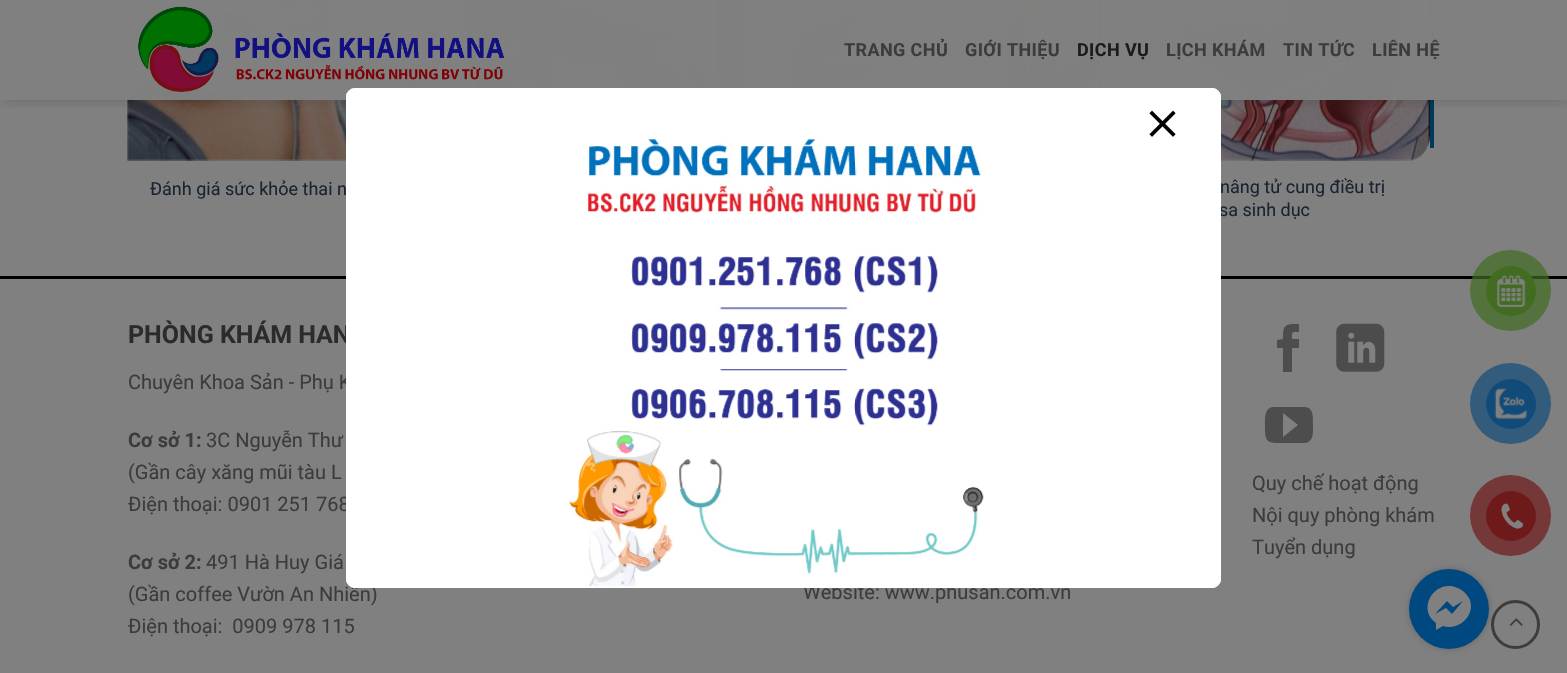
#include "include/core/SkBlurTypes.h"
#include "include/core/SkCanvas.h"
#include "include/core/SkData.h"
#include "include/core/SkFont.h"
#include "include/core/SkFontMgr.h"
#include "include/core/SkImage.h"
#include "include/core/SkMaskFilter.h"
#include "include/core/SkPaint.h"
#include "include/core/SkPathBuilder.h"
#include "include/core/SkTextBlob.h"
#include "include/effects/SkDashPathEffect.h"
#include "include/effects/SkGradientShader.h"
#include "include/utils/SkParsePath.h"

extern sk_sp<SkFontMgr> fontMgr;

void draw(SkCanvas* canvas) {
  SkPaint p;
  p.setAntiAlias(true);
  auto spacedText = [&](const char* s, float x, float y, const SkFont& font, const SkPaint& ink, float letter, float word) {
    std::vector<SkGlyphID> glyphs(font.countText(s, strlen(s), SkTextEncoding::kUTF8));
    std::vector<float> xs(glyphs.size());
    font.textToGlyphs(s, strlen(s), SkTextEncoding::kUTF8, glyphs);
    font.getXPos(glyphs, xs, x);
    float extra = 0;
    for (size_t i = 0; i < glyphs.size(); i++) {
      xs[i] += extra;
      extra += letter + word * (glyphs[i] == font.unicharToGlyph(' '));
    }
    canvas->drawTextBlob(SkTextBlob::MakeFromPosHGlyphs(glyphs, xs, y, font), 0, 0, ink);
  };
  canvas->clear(SkColorSetRGB(128, 128, 128));
  p.setColor(SkColorSetRGB(0, 57, 94));
  canvas->drawRect(SkRect::MakeLTRB(765, 0, 769, 88), p);
  canvas->drawImageRect(SkImages::DeferredFromEncodedData(SkData::MakeFromFileName("images/2.png")), SkRect::MakeLTRB(460, 0, 765, 88), SkSamplingOptions());
  canvas->drawRect(SkRect::MakeLTRB(1098, 0, 1101, 88), p);
  canvas->drawImageRect(SkImages::DeferredFromEncodedData(SkData::MakeFromFileName("images/3.png")), SkRect::MakeLTRB(793, 0, 1098, 88), SkSamplingOptions());
  canvas->drawRect(SkRect::MakeLTRB(431, 0, 435, 88), p);
  canvas->drawImageRect(SkImages::DeferredFromEncodedData(SkData::MakeFromFileName("images/4.png")), SkRect::MakeLTRB(127, 0, 432, 161), SkSamplingOptions());
  canvas->drawRect(SkRect::MakeLTRB(1430, 0, 1434, 148), p);
  canvas->drawImageRect(SkImages::DeferredFromEncodedData(SkData::MakeFromFileName("images/5.png")), SkRect::MakeLTRB(1126, 0, 1430, 161), SkSamplingOptions());
  canvas->save();
  canvas->clipRect(SkRect::MakeLTRB(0, 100, 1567, 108));
  p.setColor(SkColorSetARGB(38, 0, 0, 0));
  p.setMaskFilter(SkMaskFilter::MakeBlur(kNormal_SkBlurStyle, 6));
  canvas->drawRect(SkRect::MakeLTRB(1, 1, 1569, 101), p);
  p.setMaskFilter(nullptr);
  canvas->restore();
  p.setColor(SkColorSetARGB(230, 128, 128, 128));
  canvas->drawRect(SkRect::MakeLTRB(127, 0, 1434, 100), p);
  canvas->drawRect(SkRect::MakeLTRB(127, 0, 1434, 100), p);
  canvas->drawImageRect(SkImages::DeferredFromEncodedData(SkData::MakeFromFileName("images/1.png")), SkRect::MakeLTRB(138, 6, 505, 92), SkSamplingOptions());
  p.setColor(SK_ColorBLACK);
  canvas->drawRect(SkRect::MakeLTRB(0, 276, 1567, 279), p);
  p.setColor(SkColorSetRGB(77, 77, 77));
  canvas->drawPath(SkPathBuilder().moveTo(1292, 372).lineTo(1283, 372).lineTo(1283, 348).lineTo(1277, 348).lineTo(1277, 340).lineTo(1283, 339).cubicTo(1283, 324, 1285, 324, 1299, 324).lineTo(1299, 332).cubicTo(1291, 332, 1292, 332, 1292, 339).lineTo(1299, 339).lineTo(1299, 348).lineTo(1292, 348).close().detach(), p);
  canvas->drawImageRect(SkImages::DeferredFromEncodedData(SkData::MakeFromFileName("images/6.png")), SkRect::MakeLTRB(1336, 323, 1385, 372), SkSamplingOptions());
  canvas->drawPath(SkPathBuilder().moveTo(1304, 407).lineTo(1273, 407).cubicTo(1264, 408, 1265, 419, 1265, 425).cubicTo(1265, 443, 1266, 443, 1284, 443).lineTo(1305, 443).cubicTo(1314, 442, 1313, 432, 1313, 425).cubicTo(1313, 418, 1314, 407, 1304, 407).close().moveTo(1283, 437).lineTo(1283, 413).lineTo(1298, 425).close().detach(), p);
  p.setStyle(SkPaint::kStroke_Style);
  p.setStrokeWidth(3);
  p.setColor(SkColorSetRGB(60, 60, 60));
  canvas->drawCircle(1515.5f, 624.5f, 23, p);
  canvas->drawImageRect(SkImages::DeferredFromEncodedData(SkData::MakeFromFileName("images/7.png")), SkRect::MakeLTRB(1509, 618, 1523, 626), SkSamplingOptions());
  p.setStyle(SkPaint::kFill_Style);
  p.setColor(SkColorSetARGB(179, 65, 108, 33));
  canvas->drawCircle(1510.5f, 290.5f, 40.5f, p);
  p.setColor(SkColorSetRGB(65, 108, 33));
  canvas->drawCircle(1511, 291, 25, p);
  canvas->drawImageRect(SkImages::DeferredFromEncodedData(SkData::MakeFromFileName("images/10.png")), SkRect::MakeLTRB(1497, 275, 1526, 307), SkSamplingOptions());
  p.setColor(SkColorSetRGB(50, 91, 124));
  canvas->drawCircle(1510.5f, 403.5f, 40.5f, p);
  p.setColor(SkColorSetRGB(17, 75, 122));
  canvas->drawCircle(1511, 404, 25, p);
  canvas->drawImageRect(SkImages::DeferredFromEncodedData(SkData::MakeFromFileName("images/11.png")), SkRect::MakeLTRB(1494, 388, 1527, 420), SkSamplingOptions());
  p.setColor(SkColorSetRGB(116, 56, 56));
  canvas->drawCircle(1510.5f, 515.5f, 40.5f, p);
  p.setColor(SkColorSetRGB(111, 26, 26));
  canvas->drawCircle(1511, 516, 25, p);
  canvas->drawImageRect(SkImages::DeferredFromEncodedData(SkData::MakeFromFileName("images/12.png")), SkRect::MakeLTRB(1501, 503, 1523, 529), SkSamplingOptions());
  p.setColor(SkColorSetARGB(51, 0, 0, 0));
  p.setMaskFilter(SkMaskFilter::MakeBlur(kNormal_SkBlurStyle, 3));
  canvas->drawRoundRect(SkRect::MakeLTRB(1409, 569, 1489, 649), 40, 40, p);
  p.setMaskFilter(nullptr);
  p.setColor(SkColorSetRGB(0, 72, 128));
  canvas->drawCircle(1449, 609, 40, p);
  p.setColor(SkColorSetRGB(128, 128, 128));
  canvas->drawPath(SkPathBuilder().moveTo(1449, 586).cubicTo(1430, 586, 1419, 611, 1436, 623).lineTo(1436, 630).lineTo(1443, 626).cubicTo(1464, 632, 1482, 606, 1463, 591).cubicTo(1459, 588, 1454, 586, 1449, 586).close().moveTo(1452, 614).lineTo(1446, 608).lineTo(1435, 614).lineTo(1447, 601).lineTo(1453, 607).lineTo(1463, 601).close().detach(), p);
  SkFont font1(fontMgr->matchFamilyStyle("Roboto", SkFontStyle::Bold()), 18);
  font1.setSubpixel(true);
  p.setColor(SkColorSetRGB(60, 60, 60));
  spacedText("TRANG CHỦ", 844, 56, font1, p, 0.4f, 0);
  spacedText("GIỚI THIỆU", 965, 56, font1, p, 0.4f, 0);
  p.setColor(SkColorSetRGB(27, 27, 27));
  spacedText("DỊCH VỤ", 1077, 56, font1, p, 0.4f, 0);
  p.setColor(SkColorSetRGB(60, 60, 60));
  spacedText("LỊCH KHÁM", 1166, 56, font1, p, 0.4f, 0);
  spacedText("TIN TỨC", 1283, 56, font1, p, 0.4f, 0);
  spacedText("LIÊN HỆ", 1372, 56, font1, p, 0.4f, 0);
  SkFont font2(fontMgr->matchFamilyStyle("Roboto", SkFontStyle::Normal()), 18);
  font2.setSubpixel(true);
  p.setColor(SkColorSetRGB(26, 36, 49));
  canvas->drawString("Đánh giá sức khỏe thai n", 150, 195, font2, p);
  canvas->drawString("nâng tử cung điều trị", 1220, 193, font2, p);
  canvas->drawString("sa sinh dục", 1219, 216, font2, p);
  SkFont font3(fontMgr->matchFamilyStyle("Roboto", SkFontStyle::Bold()), 25);
  font3.setSubpixel(true);
  p.setColor(SkColorSetRGB(43, 43, 43));
  canvas->drawString("PHÒNG KHÁM HAN", 128, 343, font3, p);
  SkFont font4(fontMgr->matchFamilyStyle("Roboto", SkFontStyle::Normal()), 20);
  font4.setSubpixel(true);
  p.setColor(SkColorSetRGB(60, 60, 60));
  canvas->drawString("Chuyên Khoa Sản - Phụ K", 128, 389, font4, p);
  SkFont font5(fontMgr->matchFamilyStyle("Roboto", SkFontStyle::Bold()), 20);
  font5.setSubpixel(true);
  canvas->drawString("Cơ sở 1:", 128, 447, font5, p);
  canvas->drawString("3C Nguyễn Thư", 206, 447, font4, p);
  canvas->drawString("(Gần cây xăng mũi tàu L", 128, 479, font4, p);
  canvas->drawString("Điện thoại: 0901 251 768", 128, 511, font4, p);
  canvas->drawString("Cơ sở 2:", 128, 569, font5, p);
  canvas->drawString("491 Hà Huy Giá", 206, 569, font4, p);
  canvas->drawString("(Gần coffee Vườn An Nhiên)", 128, 601, font4, p);
  canvas->drawString("Điện thoại:  0909 978 115", 128, 633, font4, p);
  canvas->drawString("Quy chế hoạt động", 1252, 490, font4, p);
  canvas->drawString("Nội quy phòng khám", 1252, 522, font4, p);
  canvas->drawString("Tuyển dụng", 1252, 554, font4, p);
  canvas->drawString("Website: www.phusan.com.vn", 803, 599, font4, p);
  p.setColor(SK_ColorWHITE);
  canvas->drawRoundRect(SkRect::MakeLTRB(346, 88, 1221, 588), 9, 9, p);
  canvas->drawImageRect(SkImages::DeferredFromEncodedData(SkData::MakeFromFileName("images/8.png")), SkRect::MakeLTRB(569, 139, 984, 587), SkSamplingOptions());
  p.setStyle(SkPaint::kStroke_Style);
  p.setStrokeWidth(1);
  canvas->drawRoundRect(SkRect::MakeLTRB(346.5f, 88.5f, 1220.5f, 587.5f), 8.5f, 8.5f, p);
  canvas->drawImageRect(SkImages::DeferredFromEncodedData(SkData::MakeFromFileName("images/9.png")), SkRect::MakeLTRB(1149, 110, 1176, 137), SkSamplingOptions());
}
